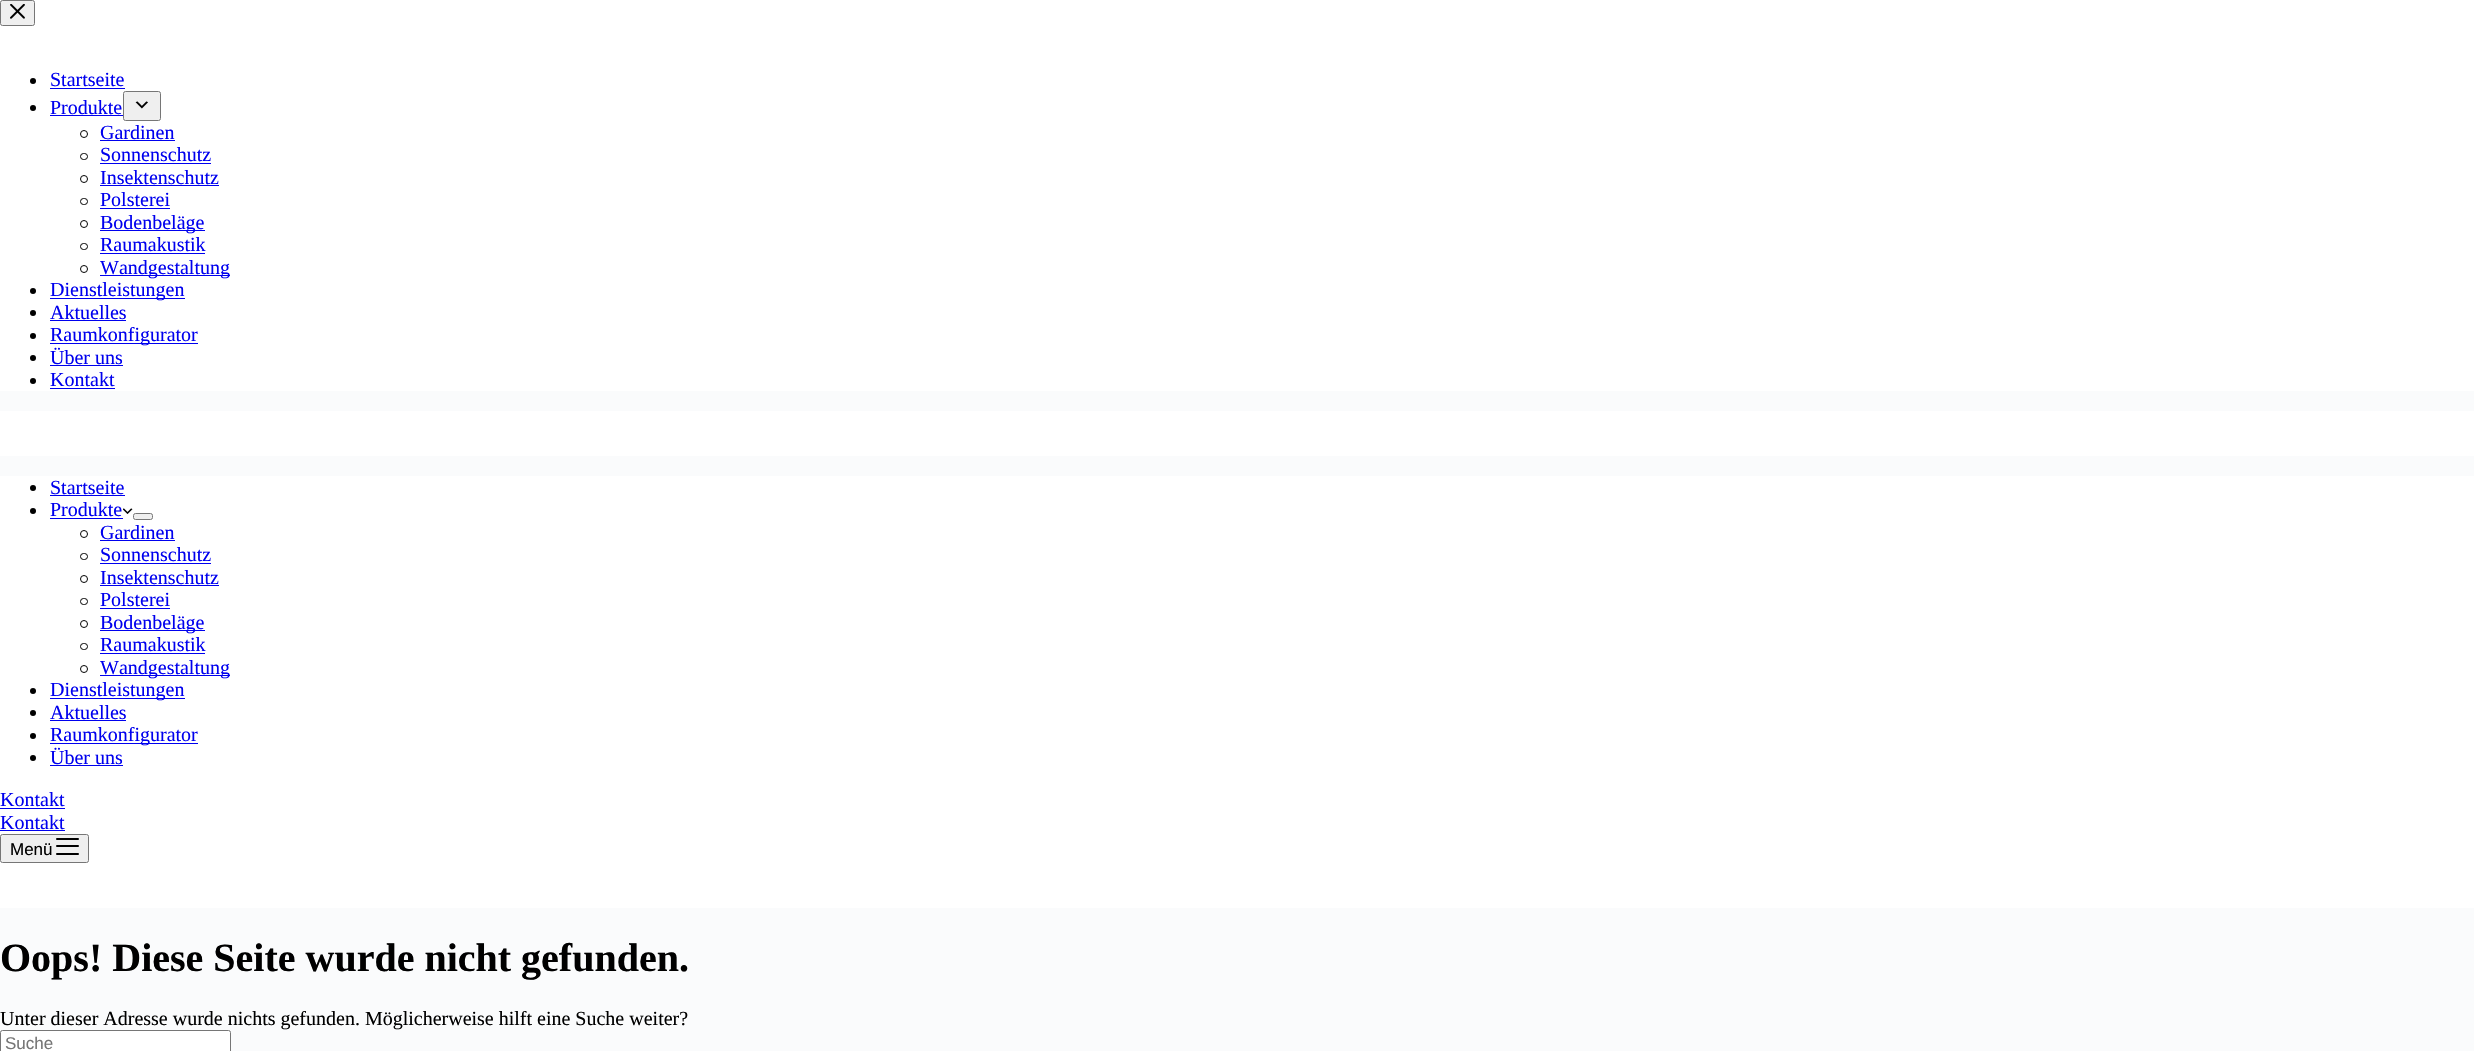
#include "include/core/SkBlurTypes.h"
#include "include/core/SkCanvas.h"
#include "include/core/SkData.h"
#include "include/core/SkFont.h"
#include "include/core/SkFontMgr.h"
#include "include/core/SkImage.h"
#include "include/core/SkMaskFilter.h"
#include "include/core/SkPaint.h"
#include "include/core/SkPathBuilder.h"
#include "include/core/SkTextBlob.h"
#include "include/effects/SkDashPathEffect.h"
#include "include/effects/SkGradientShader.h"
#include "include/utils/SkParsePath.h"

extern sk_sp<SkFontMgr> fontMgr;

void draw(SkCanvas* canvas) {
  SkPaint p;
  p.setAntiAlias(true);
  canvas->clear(SkColorSetRGB(250, 251, 252));
  p.setColor(SK_ColorWHITE);
  canvas->drawRect(SkRect::MakeLTRB(0, 0, 2474, 391), p);
  p.setColor(SkColorSetRGB(239, 239, 239));
  canvas->drawRoundRect(SkRect::MakeLTRB(0.5f, 0.5f, 34.5f, 25.5f), 2, 2, p);
  p.setStyle(SkPaint::kStroke_Style);
  p.setStrokeWidth(1);
  p.setColor(SkColorSetRGB(118, 118, 118));
  canvas->drawRoundRect(SkRect::MakeLTRB(0.5f, 0.5f, 34.5f, 25.5f), 2, 2, p);
  canvas->drawImageRect(SkImages::DeferredFromEncodedData(SkData::MakeFromFileName("images/1.png")), SkRect::MakeLTRB(10, 4, 25, 19), SkSamplingOptions());
  p.setStyle(SkPaint::kFill_Style);
  p.setColor(SK_ColorBLACK);
  canvas->drawCircle(33, 81, 3, p);
  p.setColor(SkColorSetRGB(0, 0, 238));
  canvas->drawRect(SkRect::MakeLTRB(50, 88, 125, 89), p);
  p.setColor(SK_ColorBLACK);
  canvas->drawCircle(33, 108, 3, p);
  p.setColor(SkColorSetRGB(0, 0, 238));
  canvas->drawRect(SkRect::MakeLTRB(50, 115, 123, 116), p);
  p.setColor(SkColorSetRGB(239, 239, 239));
  canvas->drawRoundRect(SkRect::MakeLTRB(123.5f, 91.5f, 160.5f, 120.5f), 2, 2, p);
  p.setStyle(SkPaint::kStroke_Style);
  p.setColor(SkColorSetRGB(118, 118, 118));
  canvas->drawRoundRect(SkRect::MakeLTRB(123.5f, 91.5f, 160.5f, 120.5f), 2, 2, p);
  canvas->drawImageRect(SkImages::DeferredFromEncodedData(SkData::MakeFromFileName("images/2.png")), SkRect::MakeLTRB(135, 101, 148, 109), SkSamplingOptions());
  p.setColor(SK_ColorBLACK);
  canvas->drawCircle(84, 134, 3.5f, p);
  p.setStyle(SkPaint::kFill_Style);
  p.setColor(SkColorSetRGB(0, 0, 238));
  canvas->drawRect(SkRect::MakeLTRB(100, 140, 175, 141), p);
  p.setStyle(SkPaint::kStroke_Style);
  p.setColor(SK_ColorBLACK);
  canvas->drawRoundRect(SkRect::MakeLTRB(80.5f, 153.5f, 87.5f, 159.5f), 3, 3, p);
  p.setStyle(SkPaint::kFill_Style);
  p.setColor(SkColorSetRGB(0, 0, 238));
  canvas->drawRect(SkRect::MakeLTRB(100, 163, 211, 164), p);
  p.setStyle(SkPaint::kStroke_Style);
  p.setColor(SK_ColorBLACK);
  canvas->drawCircle(84, 179, 3.5f, p);
  p.setStyle(SkPaint::kFill_Style);
  p.setColor(SkColorSetRGB(0, 0, 238));
  canvas->drawRect(SkRect::MakeLTRB(100, 185, 219, 186), p);
  p.setStyle(SkPaint::kStroke_Style);
  p.setColor(SK_ColorBLACK);
  canvas->drawRoundRect(SkRect::MakeLTRB(80.5f, 198.5f, 87.5f, 204.5f), 3, 3, p);
  p.setStyle(SkPaint::kFill_Style);
  p.setColor(SkColorSetRGB(0, 0, 238));
  canvas->drawRect(SkRect::MakeLTRB(100, 208, 170, 209), p);
  p.setStyle(SkPaint::kStroke_Style);
  p.setColor(SK_ColorBLACK);
  canvas->drawCircle(84, 224, 3.5f, p);
  p.setStyle(SkPaint::kFill_Style);
  p.setColor(SkColorSetRGB(0, 0, 238));
  canvas->drawRect(SkRect::MakeLTRB(100, 230, 205, 231), p);
  p.setStyle(SkPaint::kStroke_Style);
  p.setColor(SK_ColorBLACK);
  canvas->drawRoundRect(SkRect::MakeLTRB(80.5f, 243.5f, 87.5f, 249.5f), 3, 3, p);
  p.setStyle(SkPaint::kFill_Style);
  p.setColor(SkColorSetRGB(0, 0, 238));
  canvas->drawRect(SkRect::MakeLTRB(100, 253, 205, 254), p);
  p.setStyle(SkPaint::kStroke_Style);
  p.setColor(SK_ColorBLACK);
  canvas->drawCircle(84, 269, 3.5f, p);
  p.setStyle(SkPaint::kFill_Style);
  p.setColor(SkColorSetRGB(0, 0, 238));
  canvas->drawRect(SkRect::MakeLTRB(100, 275, 230, 276), p);
  p.setColor(SK_ColorBLACK);
  canvas->drawCircle(33, 291, 3, p);
  p.setColor(SkColorSetRGB(0, 0, 238));
  canvas->drawRect(SkRect::MakeLTRB(50, 298, 185, 299), p);
  p.setColor(SK_ColorBLACK);
  canvas->drawCircle(33, 313, 3, p);
  p.setColor(SkColorSetRGB(0, 0, 238));
  canvas->drawRect(SkRect::MakeLTRB(50, 320, 126, 321), p);
  p.setColor(SK_ColorBLACK);
  canvas->drawCircle(33, 336, 3, p);
  p.setColor(SkColorSetRGB(0, 0, 238));
  canvas->drawRect(SkRect::MakeLTRB(50, 343, 198, 344), p);
  p.setColor(SK_ColorBLACK);
  canvas->drawCircle(33, 358, 3, p);
  p.setColor(SkColorSetRGB(0, 0, 238));
  canvas->drawRect(SkRect::MakeLTRB(50, 365, 123, 366), p);
  p.setColor(SK_ColorBLACK);
  canvas->drawCircle(33, 381, 3, p);
  p.setColor(SkColorSetRGB(0, 0, 238));
  canvas->drawRect(SkRect::MakeLTRB(50, 388, 115, 389), p);
  p.setColor(SK_ColorWHITE);
  canvas->drawRect(SkRect::MakeLTRB(0, 411, 2474, 456), p);
  canvas->drawRect(SkRect::MakeLTRB(0, 476, 2474, 908), p);
  p.setColor(SK_ColorBLACK);
  canvas->drawCircle(33, 488, 3, p);
  p.setColor(SkColorSetRGB(0, 0, 238));
  canvas->drawRect(SkRect::MakeLTRB(50, 495, 125, 496), p);
  p.setColor(SK_ColorBLACK);
  canvas->drawCircle(33, 511, 3, p);
  p.setColor(SkColorSetRGB(0, 0, 238));
  canvas->drawRect(SkRect::MakeLTRB(50, 518, 123, 519), p);
  canvas->drawImageRect(SkImages::DeferredFromEncodedData(SkData::MakeFromFileName("images/3.png")), SkRect::MakeLTRB(123, 508, 133, 514), SkSamplingOptions());
  p.setColor(SkColorSetRGB(239, 239, 239));
  canvas->drawRoundRect(SkRect::MakeLTRB(133.5f, 513.5f, 152.5f, 519.5f), 2, 2, p);
  p.setStyle(SkPaint::kStroke_Style);
  p.setColor(SkColorSetRGB(118, 118, 118));
  canvas->drawRoundRect(SkRect::MakeLTRB(133.5f, 513.5f, 152.5f, 519.5f), 2, 2, p);
  p.setColor(SK_ColorBLACK);
  canvas->drawCircle(84, 534, 3.5f, p);
  p.setStyle(SkPaint::kFill_Style);
  p.setColor(SkColorSetRGB(0, 0, 238));
  canvas->drawRect(SkRect::MakeLTRB(100, 540, 175, 541), p);
  p.setStyle(SkPaint::kStroke_Style);
  p.setColor(SK_ColorBLACK);
  canvas->drawRoundRect(SkRect::MakeLTRB(80.5f, 553.5f, 87.5f, 559.5f), 3, 3, p);
  p.setStyle(SkPaint::kFill_Style);
  p.setColor(SkColorSetRGB(0, 0, 238));
  canvas->drawRect(SkRect::MakeLTRB(100, 563, 211, 564), p);
  p.setStyle(SkPaint::kStroke_Style);
  p.setColor(SK_ColorBLACK);
  canvas->drawCircle(84, 579, 3.5f, p);
  p.setStyle(SkPaint::kFill_Style);
  p.setColor(SkColorSetRGB(0, 0, 238));
  canvas->drawRect(SkRect::MakeLTRB(100, 585, 219, 586), p);
  p.setStyle(SkPaint::kStroke_Style);
  p.setColor(SK_ColorBLACK);
  canvas->drawRoundRect(SkRect::MakeLTRB(80.5f, 598.5f, 87.5f, 604.5f), 3, 3, p);
  p.setStyle(SkPaint::kFill_Style);
  p.setColor(SkColorSetRGB(0, 0, 238));
  canvas->drawRect(SkRect::MakeLTRB(100, 608, 170, 609), p);
  p.setStyle(SkPaint::kStroke_Style);
  p.setColor(SK_ColorBLACK);
  canvas->drawCircle(84, 624, 3.5f, p);
  p.setStyle(SkPaint::kFill_Style);
  p.setColor(SkColorSetRGB(0, 0, 238));
  canvas->drawRect(SkRect::MakeLTRB(100, 630, 205, 631), p);
  p.setStyle(SkPaint::kStroke_Style);
  p.setColor(SK_ColorBLACK);
  canvas->drawRoundRect(SkRect::MakeLTRB(80.5f, 643.5f, 87.5f, 649.5f), 3, 3, p);
  p.setStyle(SkPaint::kFill_Style);
  p.setColor(SkColorSetRGB(0, 0, 238));
  canvas->drawRect(SkRect::MakeLTRB(100, 653, 205, 654), p);
  p.setStyle(SkPaint::kStroke_Style);
  p.setColor(SK_ColorBLACK);
  canvas->drawCircle(84, 669, 3.5f, p);
  p.setStyle(SkPaint::kFill_Style);
  p.setColor(SkColorSetRGB(0, 0, 238));
  canvas->drawRect(SkRect::MakeLTRB(100, 675, 230, 676), p);
  p.setColor(SK_ColorBLACK);
  canvas->drawCircle(33, 691, 3, p);
  p.setColor(SkColorSetRGB(0, 0, 238));
  canvas->drawRect(SkRect::MakeLTRB(50, 698, 185, 699), p);
  p.setColor(SK_ColorBLACK);
  canvas->drawCircle(33, 713, 3, p);
  p.setColor(SkColorSetRGB(0, 0, 238));
  canvas->drawRect(SkRect::MakeLTRB(50, 720, 126, 721), p);
  p.setColor(SK_ColorBLACK);
  canvas->drawCircle(33, 736, 3, p);
  p.setColor(SkColorSetRGB(0, 0, 238));
  canvas->drawRect(SkRect::MakeLTRB(50, 743, 198, 744), p);
  p.setColor(SK_ColorBLACK);
  canvas->drawCircle(33, 758, 3, p);
  p.setColor(SkColorSetRGB(0, 0, 238));
  canvas->drawRect(SkRect::MakeLTRB(50, 765, 123, 766), p);
  canvas->drawRect(SkRect::MakeLTRB(0, 808, 65, 809), p);
  canvas->drawRect(SkRect::MakeLTRB(0, 830, 65, 831), p);
  p.setColor(SkColorSetRGB(239, 239, 239));
  canvas->drawRoundRect(SkRect::MakeLTRB(0.5f, 834.5f, 88.5f, 862.5f), 2, 2, p);
  p.setStyle(SkPaint::kStroke_Style);
  p.setColor(SkColorSetRGB(118, 118, 118));
  canvas->drawRoundRect(SkRect::MakeLTRB(0.5f, 834.5f, 88.5f, 862.5f), 2, 2, p);
  p.setStyle(SkPaint::kFill_Style);
  p.setColor(SK_ColorBLACK);
  canvas->drawRoundRect(SkRect::MakeLTRB(56, 838, 79, 840), 1, 1, p);
  canvas->drawRoundRect(SkRect::MakeLTRB(56, 845, 79, 847), 1, 1, p);
  canvas->drawRoundRect(SkRect::MakeLTRB(56, 853, 79, 855), 1, 1, p);
  p.setColor(SK_ColorWHITE);
  canvas->drawRoundRect(SkRect::MakeLTRB(0.5f, 1030.5f, 230.5f, 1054.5f), 2, 2, p);
  p.setStyle(SkPaint::kStroke_Style);
  p.setColor(SkColorSetRGB(118, 118, 118));
  canvas->drawRoundRect(SkRect::MakeLTRB(0.5f, 1030.5f, 230.5f, 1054.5f), 2, 2, p);
  SkFont font1(fontMgr->matchFamilyStyle("Liberation Serif", SkFontStyle::Normal()), 20);
  font1.setSubpixel(true);
  p.setStyle(SkPaint::kFill_Style);
  p.setColor(SkColorSetRGB(0, 0, 238));
  canvas->drawString("Startseite", 50, 86, font1, p);
  canvas->drawString("Produkte", 50, 114, font1, p);
  canvas->drawString("Gardinen", 100, 139, font1, p);
  canvas->drawString("Sonnenschutz", 100, 161, font1, p);
  canvas->drawString("Insektenschutz", 100, 184, font1, p);
  canvas->drawString("Polsterei", 100, 206, font1, p);
  canvas->drawString("Bodenbeläge", 100, 229, font1, p);
  canvas->drawString("Raumakustik", 100, 251, font1, p);
  canvas->drawString("Wandgestaltung", 100, 274, font1, p);
  canvas->drawString("Dienstleistungen", 50, 296, font1, p);
  canvas->drawString("Aktuelles", 50, 319, font1, p);
  canvas->drawString("Raumkonfigurator", 50, 341, font1, p);
  canvas->drawString("Über uns", 50, 364, font1, p);
  canvas->drawString("Kontakt", 50, 386, font1, p);
  canvas->drawString("Startseite", 50, 494, font1, p);
  canvas->drawString("Produkte", 50, 516, font1, p);
  canvas->drawString("Gardinen", 100, 539, font1, p);
  canvas->drawString("Sonnenschutz", 100, 561, font1, p);
  canvas->drawString("Insektenschutz", 100, 584, font1, p);
  canvas->drawString("Polsterei", 100, 606, font1, p);
  canvas->drawString("Bodenbeläge", 100, 629, font1, p);
  canvas->drawString("Raumakustik", 100, 651, font1, p);
  canvas->drawString("Wandgestaltung", 100, 674, font1, p);
  canvas->drawString("Dienstleistungen", 50, 696, font1, p);
  canvas->drawString("Aktuelles", 50, 719, font1, p);
  canvas->drawString("Raumkonfigurator", 50, 741, font1, p);
  canvas->drawString("Über uns", 50, 764, font1, p);
  canvas->drawString("Kontakt", 0, 806, font1, p);
  canvas->drawString("Kontakt", 0, 829, font1, p);
  SkFont font2(fontMgr->matchFamilyStyle("Liberation Sans", SkFontStyle::Normal()), 17);
  font2.setSubpixel(true);
  p.setColor(SK_ColorBLACK);
  canvas->drawString("Menü", 10, 855, font2, p);
  SkFont font3(fontMgr->matchFamilyStyle("Liberation Serif", SkFontStyle::Bold()), 40);
  font3.setSubpixel(true);
  canvas->drawString("Oops! Diese Seite wurde nicht gefunden.", 0, 971, font3, p);
  canvas->drawString("Unter dieser Adresse wurde nichts gefunden. Möglicherweise hilft eine Suche weiter?", 0, 1025, font1, p);
  p.setColor(SkColorSetRGB(117, 117, 117));
  canvas->drawString("Suche", 5, 1049, font2, p);
}
